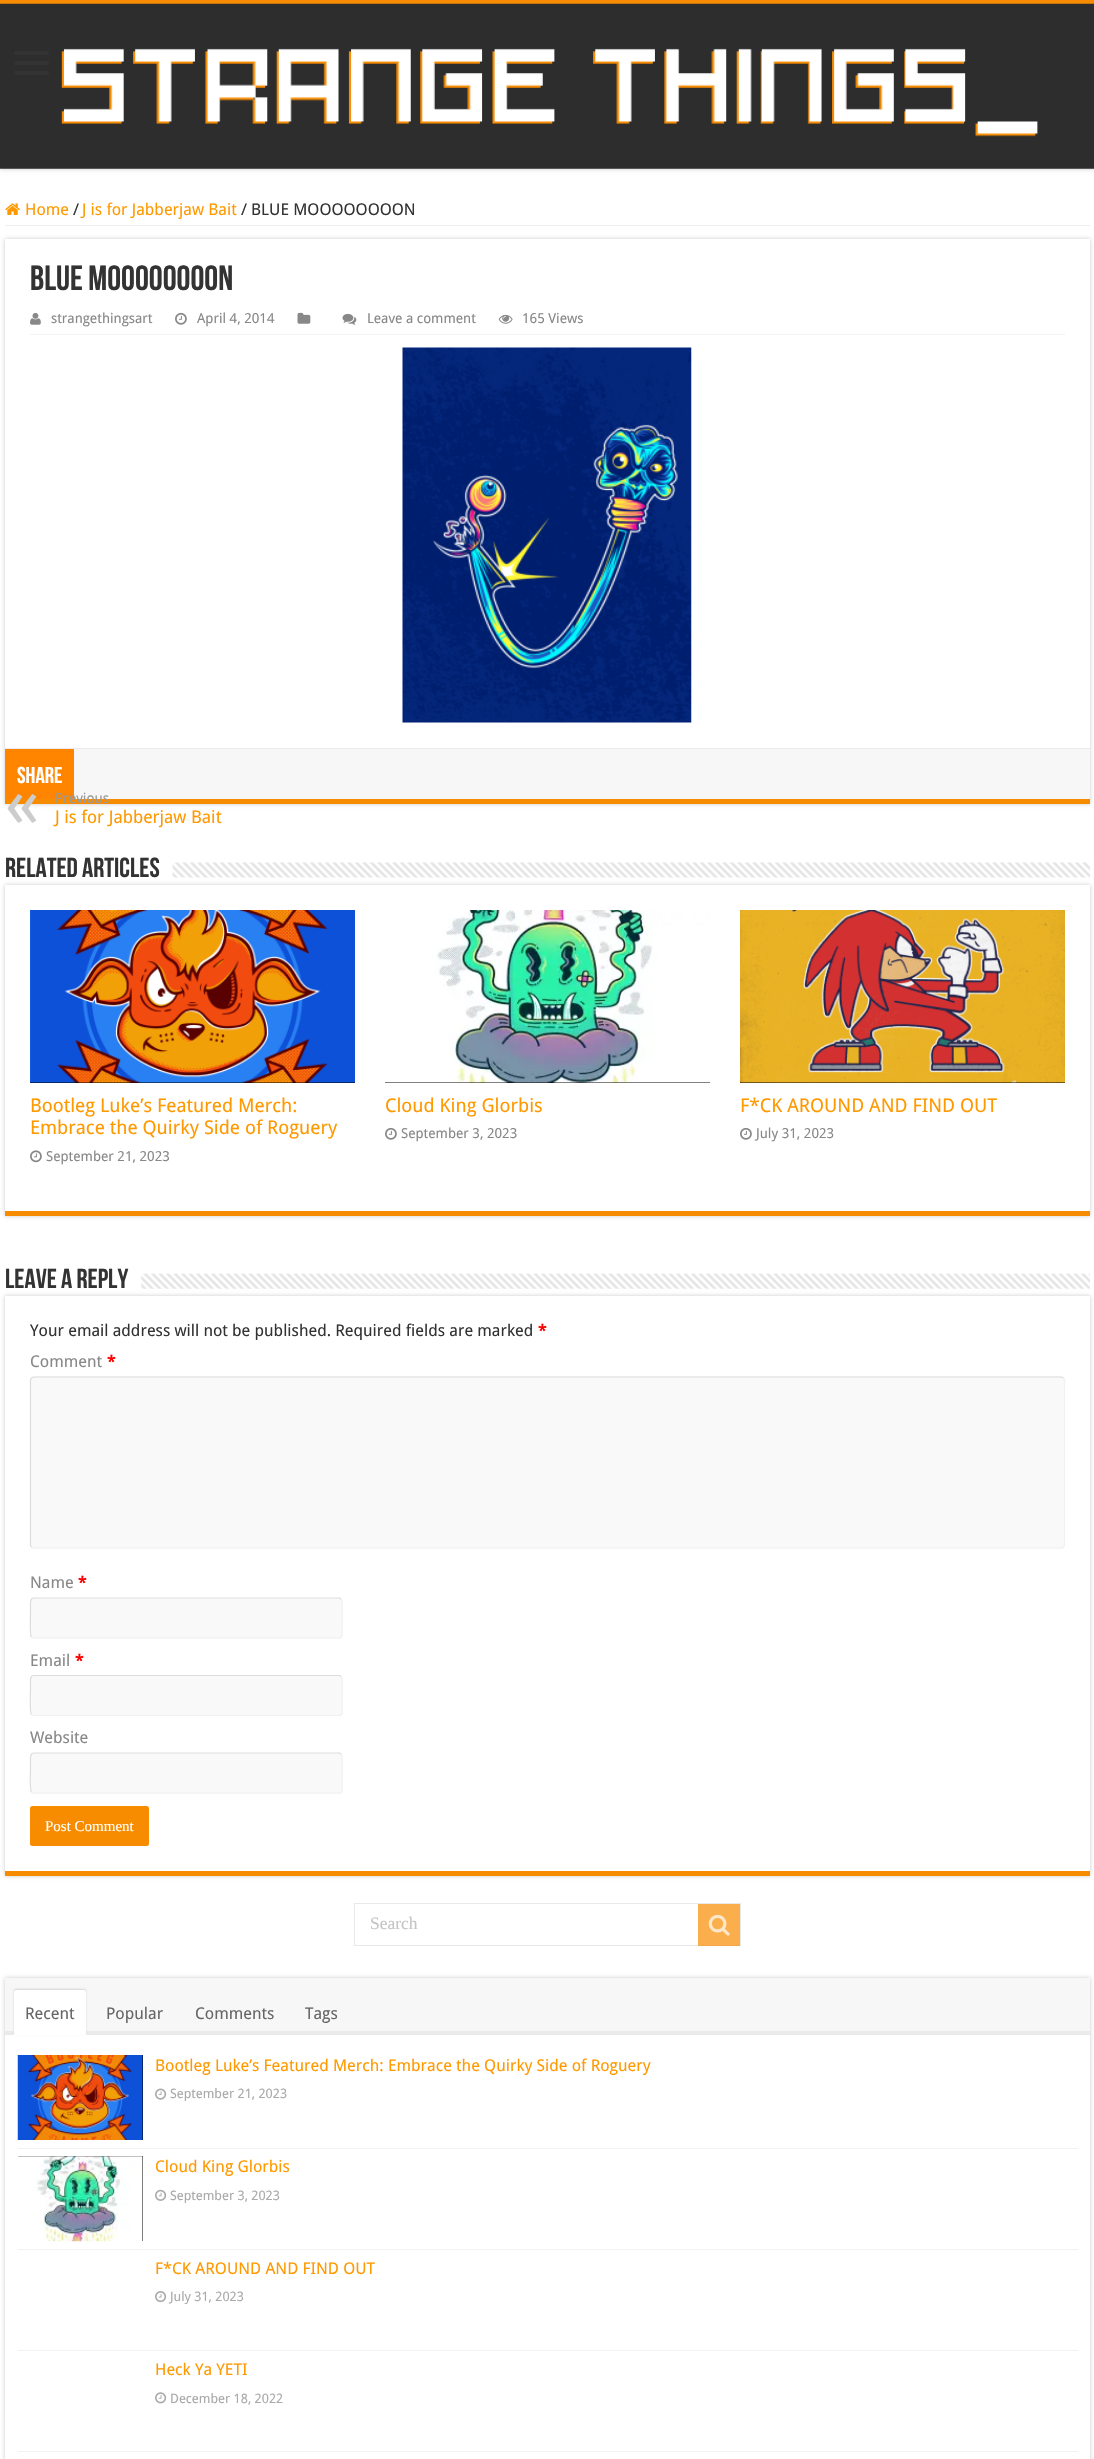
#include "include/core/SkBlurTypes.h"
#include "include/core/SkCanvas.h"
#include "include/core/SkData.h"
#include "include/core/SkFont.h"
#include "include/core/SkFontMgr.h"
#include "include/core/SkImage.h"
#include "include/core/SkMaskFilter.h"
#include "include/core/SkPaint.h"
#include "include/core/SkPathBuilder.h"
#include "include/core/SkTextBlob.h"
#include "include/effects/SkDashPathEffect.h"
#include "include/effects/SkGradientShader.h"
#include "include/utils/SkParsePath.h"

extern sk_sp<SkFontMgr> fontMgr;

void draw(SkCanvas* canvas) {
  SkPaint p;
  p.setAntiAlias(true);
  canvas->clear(SK_ColorWHITE);
  p.setColor(SkColorSetRGB(202, 202, 202));
  p.setMaskFilter(SkMaskFilter::MakeBlur(kNormal_SkBlurStyle, 2));
  canvas->drawRect(SkRect::MakeLTRB(0, 0, 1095, 169), p);
  p.setMaskFilter(nullptr);
  p.setColor(SkColorSetRGB(248, 140, 0));
  canvas->drawRect(SkRect::MakeLTRB(0, 0, 1094, 4), p);
  canvas->drawImageRect(SkImages::DeferredFromEncodedData(SkData::MakeFromFileName("images/1.png")), SkRect::MakeLTRB(0, 3, 1094, 169), SkSamplingOptions());
  p.setColor(SkColorSetRGB(51, 51, 51));
  canvas->drawRoundRect(SkRect::MakeLTRB(14, 51, 49, 55), 2, 2, p);
  canvas->drawRoundRect(SkRect::MakeLTRB(14, 61, 49, 65), 2, 2, p);
  canvas->drawRoundRect(SkRect::MakeLTRB(14, 71, 49, 75), 2, 2, p);
  p.setColor(SkColorSetRGB(238, 238, 238));
  canvas->drawRect(SkRect::MakeLTRB(5, 225, 1090, 226), p);
  canvas->drawImageRect(SkImages::DeferredFromEncodedData(SkData::MakeFromFileName("images/2.png")), SkRect::MakeLTRB(5, 203, 20, 215), SkSamplingOptions());
  p.setColor(SkColorSetRGB(202, 202, 202));
  p.setMaskFilter(SkMaskFilter::MakeBlur(kNormal_SkBlurStyle, 2));
  canvas->drawRect(SkRect::MakeLTRB(5, 239, 1090, 804), p);
  p.setMaskFilter(nullptr);
  p.setColor(SK_ColorWHITE);
  canvas->drawRect(SkRect::MakeLTRB(5, 239, 1090, 748), p);
  p.setColor(SkColorSetRGB(248, 140, 0));
  canvas->drawRect(SkRect::MakeLTRB(5, 799, 1090, 804), p);
  p.setColor(SkColorSetRGB(242, 242, 242));
  canvas->drawRect(SkRect::MakeLTRB(30, 334, 1065, 335), p);
  canvas->drawImageRect(SkImages::DeferredFromEncodedData(SkData::MakeFromFileName("images/3.png")), SkRect::MakeLTRB(30, 312, 41, 325), SkSamplingOptions());
  canvas->drawImageRect(SkImages::DeferredFromEncodedData(SkData::MakeFromFileName("images/4.png")), SkRect::MakeLTRB(175, 312, 187, 325), SkSamplingOptions());
  canvas->drawImageRect(SkImages::DeferredFromEncodedData(SkData::MakeFromFileName("images/5.png")), SkRect::MakeLTRB(297, 312, 311, 324), SkSamplingOptions());
  canvas->drawImageRect(SkImages::DeferredFromEncodedData(SkData::MakeFromFileName("images/6.png")), SkRect::MakeLTRB(342, 313, 357, 325), SkSamplingOptions());
  canvas->drawImageRect(SkImages::DeferredFromEncodedData(SkData::MakeFromFileName("images/7.png")), SkRect::MakeLTRB(498, 314, 513, 324), SkSamplingOptions());
  canvas->drawImageRect(SkImages::DeferredFromEncodedData(SkData::MakeFromFileName("images/8.png")), SkRect::MakeLTRB(402, 347, 692, 723), SkSamplingOptions());
  p.setColor(SkColorSetRGB(247, 247, 247));
  canvas->drawRect(SkRect::MakeLTRB(74, 749, 1090, 799), p);
  p.setColor(SkColorSetRGB(234, 234, 234));
  canvas->drawRect(SkRect::MakeLTRB(5, 748, 1090, 749), p);
  p.setColor(SkColorSetRGB(255, 133, 0));
  canvas->drawRect(SkRect::MakeLTRB(5, 749, 74, 799), p);
  canvas->drawImageRect(SkImages::DeferredFromEncodedData(SkData::MakeFromFileName("images/9.png")), SkRect::MakeLTRB(172, 862, 1090, 878), SkSamplingOptions());
  canvas->save();
  canvas->clipPath(SkPathBuilder(SkPathFillType::kEvenOdd).moveTo(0, 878).lineTo(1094, 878).lineTo(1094, 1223).lineTo(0, 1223).close().moveTo(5, 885).lineTo(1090, 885).lineTo(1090, 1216).lineTo(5, 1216).close().detach(), true);
  p.setColor(SkColorSetRGB(202, 202, 202));
  p.setMaskFilter(SkMaskFilter::MakeBlur(kNormal_SkBlurStyle, 2));
  canvas->drawRect(SkRect::MakeLTRB(5, 885, 1090, 1216), p);
  p.setMaskFilter(nullptr);
  canvas->restore();
  p.setColor(SkColorSetRGB(248, 140, 0));
  canvas->drawRect(SkRect::MakeLTRB(5, 1211, 1090, 1216), p);
  p.setColor(SK_ColorBLACK);
  canvas->drawRect(SkRect::MakeLTRB(30, 1082, 355, 1083), p);
  canvas->drawImageRect(SkImages::DeferredFromEncodedData(SkData::MakeFromFileName("images/10.png")), SkRect::MakeLTRB(30, 910, 355, 1083), SkSamplingOptions());
  canvas->drawImageRect(SkImages::DeferredFromEncodedData(SkData::MakeFromFileName("images/11.png")), SkRect::MakeLTRB(30, 1150, 42, 1163), SkSamplingOptions());
  canvas->drawRect(SkRect::MakeLTRB(385, 1082, 710, 1083), p);
  canvas->drawImageRect(SkImages::DeferredFromEncodedData(SkData::MakeFromFileName("images/12.png")), SkRect::MakeLTRB(385, 910, 710, 1083), SkSamplingOptions());
  canvas->drawImageRect(SkImages::DeferredFromEncodedData(SkData::MakeFromFileName("images/4.png")), SkRect::MakeLTRB(385, 1127, 397, 1140), SkSamplingOptions());
  canvas->drawRect(SkRect::MakeLTRB(740, 1082, 1065, 1083), p);
  canvas->drawImageRect(SkImages::DeferredFromEncodedData(SkData::MakeFromFileName("images/13.png")), SkRect::MakeLTRB(740, 910, 1065, 1083), SkSamplingOptions());
  canvas->drawImageRect(SkImages::DeferredFromEncodedData(SkData::MakeFromFileName("images/4.png")), SkRect::MakeLTRB(740, 1127, 752, 1140), SkSamplingOptions());
  canvas->drawImageRect(SkImages::DeferredFromEncodedData(SkData::MakeFromFileName("images/14.png")), SkRect::MakeLTRB(141, 1273, 1090, 1289), SkSamplingOptions());
  p.setColor(SkColorSetRGB(202, 202, 202));
  p.setMaskFilter(SkMaskFilter::MakeBlur(kNormal_SkBlurStyle, 2));
  canvas->drawRect(SkRect::MakeLTRB(5, 1296, 1090, 1876), p);
  p.setMaskFilter(nullptr);
  p.setColor(SK_ColorWHITE);
  canvas->drawRect(SkRect::MakeLTRB(5, 1296, 1090, 1871), p);
  p.setColor(SkColorSetRGB(248, 140, 0));
  canvas->drawRect(SkRect::MakeLTRB(5, 1871, 1090, 1876), p);
  p.setColor(SkColorSetRGB(249, 249, 249));
  canvas->drawRoundRect(SkRect::MakeLTRB(30, 1376, 1065, 1549), 4, 4, p);
  p.setStyle(SkPaint::kStroke_Style);
  p.setStrokeWidth(1.2f);
  p.setColor(SkColorSetRGB(241, 241, 241));
  canvas->drawPath(SkPathBuilder().moveTo(1063.5f, 1378).lineTo(1064.5f, 1380).lineTo(1064.5f, 1545).lineTo(1063.5f, 1547).lineTo(1061, 1548).lineTo(34, 1548).lineTo(31.5f, 1547).detach(), p);
  p.setColor(SkColorSetRGB(221, 221, 221));
  canvas->drawPath(SkPathBuilder().moveTo(31.5f, 1547).lineTo(30.5f, 1545).lineTo(30.5f, 1380).lineTo(31.5f, 1378).lineTo(34, 1377).lineTo(1061, 1377).lineTo(1063.5f, 1378).detach(), p);
  p.setStyle(SkPaint::kFill_Style);
  p.setColor(SkColorSetRGB(249, 249, 249));
  canvas->drawRoundRect(SkRect::MakeLTRB(30, 1598, 343, 1639), 4, 4, p);
  p.setStyle(SkPaint::kStroke_Style);
  p.setColor(SkColorSetRGB(241, 241, 241));
  canvas->drawPath(SkPathBuilder().moveTo(341, 1599).cubicTo(343, 1601, 342, 1620, 342, 1624).lineTo(342, 1629.5f).cubicTo(342, 1631.5f, 343, 1638, 339, 1638).lineTo(33, 1638).lineTo(31.5f, 1637).detach(), p);
  p.setColor(SkColorSetRGB(221, 221, 221));
  canvas->drawPath(SkPathBuilder().moveTo(31.5f, 1637).cubicTo(29.5f, 1635, 30.5f, 1616.5f, 30.5f, 1612.5f).lineTo(30.5f, 1607).cubicTo(30.5f, 1604.5f, 29.5f, 1598, 34, 1598).lineTo(339.5f, 1598).lineTo(341, 1599).detach(), p);
  p.setStyle(SkPaint::kFill_Style);
  p.setColor(SkColorSetRGB(249, 249, 249));
  canvas->drawRoundRect(SkRect::MakeLTRB(30, 1675, 343, 1716), 4, 4, p);
  p.setStyle(SkPaint::kStroke_Style);
  p.setColor(SkColorSetRGB(241, 241, 241));
  canvas->drawPath(SkPathBuilder().moveTo(341, 1676.5f).cubicTo(343, 1678.5f, 342, 1697.5f, 342, 1701).lineTo(342, 1707).cubicTo(342, 1709, 343, 1715.5f, 339, 1715.5f).lineTo(33, 1715.5f).lineTo(31.5f, 1714.5f).detach(), p);
  p.setColor(SkColorSetRGB(221, 221, 221));
  canvas->drawPath(SkPathBuilder().moveTo(31.5f, 1714.5f).cubicTo(29.5f, 1712.5f, 30.5f, 1694, 30.5f, 1690).lineTo(30.5f, 1684.5f).cubicTo(30.5f, 1682, 29.5f, 1675.5f, 34, 1675.5f).lineTo(339.5f, 1675.5f).lineTo(341, 1676.5f).detach(), p);
  p.setStyle(SkPaint::kFill_Style);
  p.setColor(SkColorSetRGB(249, 249, 249));
  canvas->drawRoundRect(SkRect::MakeLTRB(30, 1753, 343, 1794), 4, 4, p);
  p.setStyle(SkPaint::kStroke_Style);
  p.setColor(SkColorSetRGB(241, 241, 241));
  canvas->drawPath(SkPathBuilder().moveTo(341, 1754).cubicTo(343, 1756, 342, 1775, 342, 1779).lineTo(342, 1784.5f).cubicTo(342, 1786.5f, 343, 1793, 339, 1793).lineTo(33, 1793).lineTo(31.5f, 1792).detach(), p);
  p.setColor(SkColorSetRGB(221, 221, 221));
  canvas->drawPath(SkPathBuilder().moveTo(31.5f, 1792).cubicTo(29.5f, 1790, 30.5f, 1771.5f, 30.5f, 1767.5f).lineTo(30.5f, 1762).cubicTo(30.5f, 1759.5f, 29.5f, 1753, 34, 1753).lineTo(339.5f, 1753).lineTo(341, 1754).detach(), p);
  p.setStyle(SkPaint::kFill_Style);
  p.setColor(SkColorSetRGB(248, 140, 0));
  canvas->drawRoundRect(SkRect::MakeLTRB(30, 1806, 149, 1846), 2.5f, 2.5f, p);
  p.setStyle(SkPaint::kStroke_Style);
  p.setStrokeWidth(1);
  p.setColor(SkColorSetRGB(232, 232, 232));
  canvas->drawRect(SkRect::MakeLTRB(354.5f, 1903.5f, 740.5f, 1945.5f), p);
  p.setStyle(SkPaint::kFill_Style);
  p.setColor(SkColorSetARGB(179, 248, 140, 0));
  canvas->drawRect(SkRect::MakeLTRB(698, 1904, 740, 1946), p);
  canvas->drawImageRect(SkImages::DeferredFromEncodedData(SkData::MakeFromFileName("images/15.png")), SkRect::MakeLTRB(708, 1914, 730, 1936), SkSamplingOptions());
  canvas->save();
  canvas->clipPath(SkPathBuilder(SkPathFillType::kEvenOdd).moveTo(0, 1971).lineTo(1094, 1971).lineTo(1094, 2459).lineTo(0, 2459).close().moveTo(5, 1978).lineTo(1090, 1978).lineTo(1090, 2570).lineTo(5, 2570).close().detach(), true);
  p.setColor(SkColorSetRGB(202, 202, 202));
  p.setMaskFilter(SkMaskFilter::MakeBlur(kNormal_SkBlurStyle, 2));
  canvas->drawRect(SkRect::MakeLTRB(5, 1978, 1090, 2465), p);
  p.setMaskFilter(nullptr);
  canvas->restore();
  p.setColor(SkColorSetRGB(247, 247, 247));
  canvas->drawRect(SkRect::MakeLTRB(5, 1978, 1090, 2031), p);
  p.setColor(SkColorSetRGB(234, 234, 234));
  canvas->drawRect(SkRect::MakeLTRB(5, 2031, 1090, 2035), p);
  p.setColor(SkColorSetRGB(212, 212, 212));
  p.setMaskFilter(SkMaskFilter::MakeBlur(kNormal_SkBlurStyle, 1));
  canvas->drawRoundRect(SkRect::MakeLTRB(14, 1989, 86, 2034), 2.5f, 2.5f, p);
  p.setMaskFilter(nullptr);
  p.setColor(SK_ColorWHITE);
  canvas->drawPath(SkPathBuilder().moveTo(16.5f, 1990).lineTo(83.5f, 1990).cubicTo(85, 1990, 86, 1991, 86, 1992.5f).lineTo(86, 2035).lineTo(14, 2035).lineTo(14, 1992.5f).cubicTo(14, 1991, 15, 1990, 16.5f, 1990).close().detach(), p);
  p.setColor(SkColorSetRGB(242, 242, 242));
  canvas->drawRect(SkRect::MakeLTRB(18, 2148, 1078, 2149), p);
  p.setColor(SK_ColorBLACK);
  canvas->drawRect(SkRect::MakeLTRB(142, 2055, 143, 2140), p);
  canvas->drawImageRect(SkImages::DeferredFromEncodedData(SkData::MakeFromFileName("images/16.png")), SkRect::MakeLTRB(17, 2055, 143, 2140), SkSamplingOptions());
  canvas->drawImageRect(SkImages::DeferredFromEncodedData(SkData::MakeFromFileName("images/17.png")), SkRect::MakeLTRB(155, 2088, 167, 2100), SkSamplingOptions());
  p.setColor(SkColorSetRGB(242, 242, 242));
  canvas->drawRect(SkRect::MakeLTRB(18, 2249, 1078, 2250), p);
  p.setColor(SK_ColorBLACK);
  canvas->drawRect(SkRect::MakeLTRB(18, 2156, 143, 2241), p);
  canvas->drawImageRect(SkImages::DeferredFromEncodedData(SkData::MakeFromFileName("images/18.png")), SkRect::MakeLTRB(18, 2156, 143, 2242), SkSamplingOptions());
  canvas->drawImageRect(SkImages::DeferredFromEncodedData(SkData::MakeFromFileName("images/19.png")), SkRect::MakeLTRB(155, 2189, 167, 2201), SkSamplingOptions());
  p.setColor(SkColorSetRGB(242, 242, 242));
  canvas->drawRect(SkRect::MakeLTRB(18, 2350, 1078, 2351), p);
  canvas->drawImageRect(SkImages::DeferredFromEncodedData(SkData::MakeFromFileName("images/20.png")), SkRect::MakeLTRB(155, 2291, 167, 2303), SkSamplingOptions());
  canvas->drawRect(SkRect::MakeLTRB(18, 2451, 1078, 2452), p);
  canvas->drawImageRect(SkImages::DeferredFromEncodedData(SkData::MakeFromFileName("images/21.png")), SkRect::MakeLTRB(155, 2392, 167, 2404), SkSamplingOptions());
  SkFont font1(fontMgr->matchFamilyStyle("Droid Sans", SkFontStyle::Normal()), 16.25f);
  font1.setSubpixel(true);
  p.setColor(SkColorSetRGB(255, 153, 0));
  canvas->drawString("Home", 25, 215, font1, p);
  p.setColor(SkColorSetRGB(51, 51, 51));
  canvas->drawString("/", 73, 215, font1, p);
  p.setColor(SkColorSetRGB(255, 153, 0));
  canvas->drawString("J is for Jabberjaw Bait", 82, 215, font1, p);
  p.setColor(SkColorSetRGB(51, 51, 51));
  canvas->drawString("/", 241, 215, font1, p);
  canvas->drawString("BLUE MOOOOOOOON", 251, 215, font1, p);
  SkFont font2(fontMgr->matchFamilyStyle("Bebas Neue", SkFontStyle::Bold()), 35);
  font2.setSubpixel(true);
  canvas->drawString("BLUE MOOOOOOOON", 30, 290, font2, p);
  SkFont font3(fontMgr->matchFamilyStyle("Droid Sans", SkFontStyle::Normal()), 13.75f);
  font3.setSubpixel(true);
  p.setColor(SkColorSetRGB(136, 136, 136));
  canvas->drawString("strangethingsart", 51, 323, font3, p);
  canvas->drawString("April 4, 2014", 197, 323, font3, p);
  canvas->drawString("Leave a comment", 367, 323, font3, p);
  canvas->drawString("165 Views", 522, 323, font3, p);
  SkFont font4(fontMgr->matchFamilyStyle("Bebas Neue", SkFontStyle::Bold()), 23);
  font4.setSubpixel(true);
  p.setColor(SK_ColorWHITE);
  canvas->drawString("Share", 17, 783, font4, p);
  SkFont font5(fontMgr->matchFamilyStyle("Droid Sans", SkFontStyle::Normal()), 70);
  font5.setSubpixel(true);
  p.setColor(SkColorSetRGB(204, 204, 204));
  canvas->drawString("«", 5, 827, font5, p);
  SkFont font6(fontMgr->matchFamilyStyle("Droid Sans", SkFontStyle::Normal()), 14);
  font6.setSubpixel(true);
  p.setColor(SkColorSetRGB(153, 153, 153));
  canvas->drawString("Previous", 55, 803, font6, p);
  SkFont font7(fontMgr->matchFamilyStyle("Droid Sans", SkFontStyle::Normal()), 17.5f);
  font7.setSubpixel(true);
  p.setColor(SkColorSetRGB(255, 153, 0));
  canvas->drawString("J is for Jabberjaw Bait", 55, 823, font7, p);
  SkFont font8(fontMgr->matchFamilyStyle("Bebas Neue", SkFontStyle::Bold()), 27.5f);
  font8.setSubpixel(true);
  p.setColor(SkColorSetRGB(51, 51, 51));
  canvas->drawString("Related Articles", 5, 877, font8, p);
  SkFont font9(fontMgr->matchFamilyStyle("Droid Sans", SkFontStyle::Normal()), 19);
  font9.setSubpixel(true);
  p.setColor(SkColorSetRGB(255, 153, 0));
  canvas->drawString("Bootleg Luke’s Featured Merch:", 30, 1112, font9, p);
  canvas->drawString("Embrace the Quirky Side of Roguery", 30, 1134, font9, p);
  p.setColor(SkColorSetRGB(136, 136, 136));
  canvas->drawString("September 21, 2023", 46, 1161, font3, p);
  p.setColor(SkColorSetRGB(255, 153, 0));
  canvas->drawString("Cloud King Glorbis", 385, 1112, font9, p);
  p.setColor(SkColorSetRGB(136, 136, 136));
  canvas->drawString("September 3, 2023", 401, 1138, font3, p);
  p.setColor(SkColorSetRGB(255, 153, 0));
  canvas->drawString("F*CK AROUND AND FIND OUT", 740, 1112, font9, p);
  p.setColor(SkColorSetRGB(136, 136, 136));
  canvas->drawString("July 31, 2023", 756, 1138, font3, p);
  p.setColor(SkColorSetRGB(51, 51, 51));
  canvas->drawString("Leave a Reply", 5, 1288, font8, p);
  canvas->drawString("Your email address will not be published. Required fields are marked", 30, 1336, font1, p);
  SkFont font10(fontMgr->matchFamilyStyle("Droid Sans", SkFontStyle::Bold()), 16.25f);
  font10.setSubpixel(true);
  p.setColor(SkColorSetRGB(255, 0, 0));
  canvas->drawString("*", 538, 1336, font10, p);
  p.setColor(SkColorSetRGB(136, 136, 136));
  canvas->drawString("Comment", 30, 1367, font1, p);
  p.setColor(SkColorSetRGB(255, 0, 0));
  canvas->drawString("*", 107, 1367, font10, p);
  p.setColor(SkColorSetRGB(136, 136, 136));
  canvas->drawString("Name", 30, 1588, font1, p);
  p.setColor(SkColorSetRGB(255, 0, 0));
  canvas->drawString("*", 78, 1588, font10, p);
  p.setColor(SkColorSetRGB(136, 136, 136));
  canvas->drawString("Email", 30, 1666, font1, p);
  p.setColor(SkColorSetRGB(255, 0, 0));
  canvas->drawString("*", 75, 1666, font10, p);
  p.setColor(SkColorSetRGB(136, 136, 136));
  canvas->drawString("Website", 30, 1743, font1, p);
  SkFont font11(fontMgr->matchFamilyStyle("Liberation Serif", SkFontStyle::Normal()), 15);
  font11.setSubpixel(true);
  p.setColor(SK_ColorWHITE);
  canvas->drawString("Post Comment", 45, 1831, font11, p);
  SkFont font12(fontMgr->matchFamilyStyle("Liberation Serif", SkFontStyle::Normal()), 17.5f);
  font12.setSubpixel(true);
  p.setColor(SkColorSetRGB(197, 197, 197));
  canvas->drawString("Search", 370, 1929, font12, p);
  p.setColor(SkColorSetRGB(102, 102, 102));
  canvas->drawString("Recent", 25, 2019, font1, p);
  canvas->drawString("Popular", 106, 2019, font1, p);
  canvas->drawString("Comments", 195, 2019, font1, p);
  canvas->drawString("Tags", 305, 2019, font1, p);
  p.setColor(SkColorSetRGB(255, 153, 0));
  canvas->drawString("Bootleg Luke’s Featured Merch: Embrace the Quirky Side of Roguery", 155, 2071, font1, p);
  SkFont font13(fontMgr->matchFamilyStyle("Droid Sans", SkFontStyle::Normal()), 13);
  font13.setSubpixel(true);
  p.setColor(SkColorSetRGB(170, 170, 170));
  canvas->drawString("September 21, 2023", 170, 2098, font13, p);
  p.setColor(SkColorSetRGB(255, 153, 0));
  canvas->drawString("Cloud King Glorbis", 155, 2172, font1, p);
  p.setColor(SkColorSetRGB(170, 170, 170));
  canvas->drawString("September 3, 2023", 170, 2200, font13, p);
  p.setColor(SkColorSetRGB(255, 153, 0));
  canvas->drawString("F*CK AROUND AND FIND OUT", 155, 2274, font1, p);
  p.setColor(SkColorSetRGB(170, 170, 170));
  canvas->drawString("July 31, 2023", 170, 2301, font13, p);
  p.setColor(SkColorSetRGB(255, 153, 0));
  canvas->drawString("Heck Ya YETI", 155, 2375, font1, p);
  p.setColor(SkColorSetRGB(170, 170, 170));
  canvas->drawString("December 18, 2022", 170, 2403, font13, p);
}
